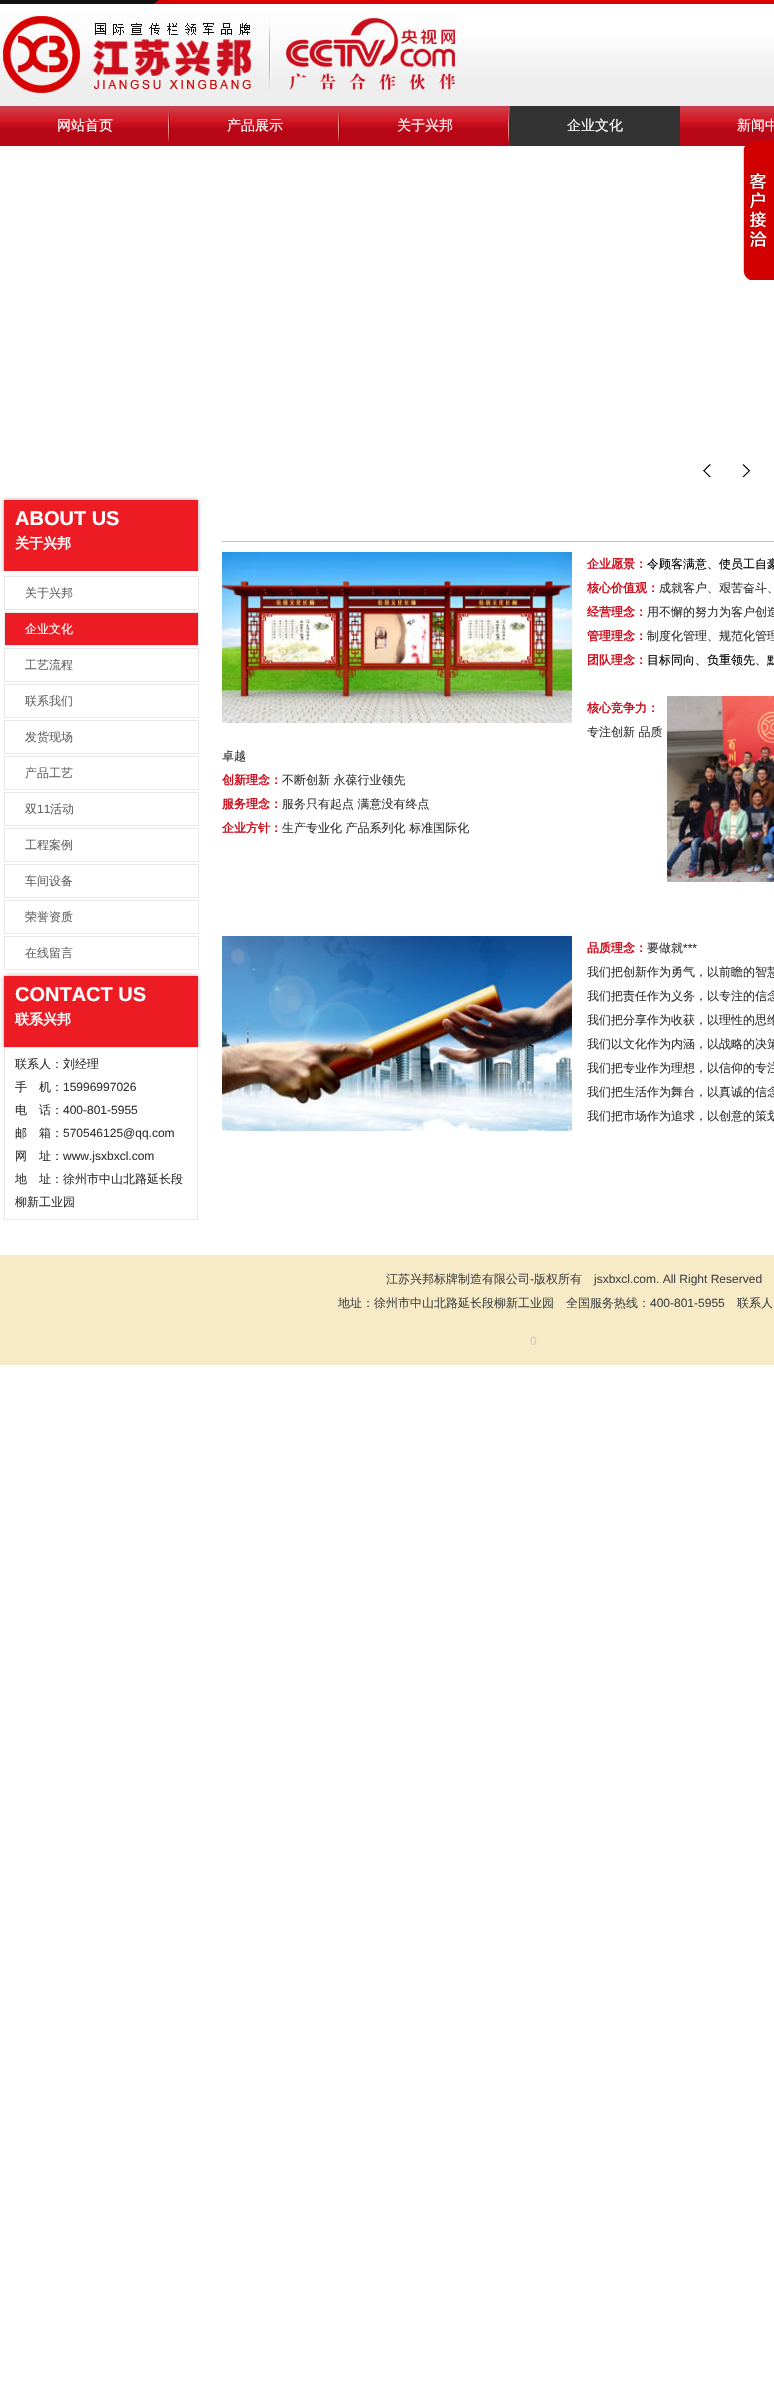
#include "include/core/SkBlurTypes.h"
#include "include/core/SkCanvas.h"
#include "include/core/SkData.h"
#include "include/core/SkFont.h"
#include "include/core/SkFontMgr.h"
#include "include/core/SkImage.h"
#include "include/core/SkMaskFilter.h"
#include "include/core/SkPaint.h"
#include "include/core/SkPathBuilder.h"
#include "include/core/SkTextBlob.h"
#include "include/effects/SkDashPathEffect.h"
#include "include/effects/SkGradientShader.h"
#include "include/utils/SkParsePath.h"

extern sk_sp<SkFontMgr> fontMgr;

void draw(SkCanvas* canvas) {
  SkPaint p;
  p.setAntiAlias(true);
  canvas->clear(SK_ColorWHITE);
  canvas->drawImageRect(SkImages::DeferredFromEncodedData(SkData::MakeFromFileName("images/1.png")), SkRect::MakeLTRB(0, 0, 774, 4), SkSamplingOptions());
  canvas->drawImageRect(SkImages::DeferredFromEncodedData(SkData::MakeFromFileName("images/2.png")), SkRect::MakeLTRB(0, 39, 774, 146), SkSamplingOptions());
  canvas->drawImageRect(SkImages::DeferredFromEncodedData(SkData::MakeFromFileName("images/3.png")), SkRect::MakeLTRB(0, 12, 457, 106), SkSamplingOptions());
  canvas->drawImageRect(SkImages::DeferredFromEncodedData(SkData::MakeFromFileName("images/4.png")), SkRect::MakeLTRB(168, 106, 170, 146), SkSamplingOptions());
  canvas->drawImageRect(SkImages::DeferredFromEncodedData(SkData::MakeFromFileName("images/4.png")), SkRect::MakeLTRB(338, 106, 340, 146), SkSamplingOptions());
  canvas->drawImageRect(SkImages::DeferredFromEncodedData(SkData::MakeFromFileName("images/4.png")), SkRect::MakeLTRB(508, 106, 510, 146), SkSamplingOptions());
  p.setColor(SkColorSetRGB(51, 51, 51));
  canvas->drawRect(SkRect::MakeLTRB(510, 106, 680, 146), p);
  canvas->drawImageRect(SkImages::DeferredFromEncodedData(SkData::MakeFromFileName("images/5.png")), SkRect::MakeLTRB(743, 140, 774, 280), SkSamplingOptions());
  canvas->drawImageRect(SkImages::DeferredFromEncodedData(SkData::MakeFromFileName("images/6.png")), SkRect::MakeLTRB(703, 464, 711, 478), SkSamplingOptions());
  canvas->drawImageRect(SkImages::DeferredFromEncodedData(SkData::MakeFromFileName("images/7.png")), SkRect::MakeLTRB(742, 464, 751, 478), SkSamplingOptions());
  canvas->drawImageRect(SkImages::DeferredFromEncodedData(SkData::MakeFromFileName("images/8.png")), SkRect::MakeLTRB(0, 496, 202, 571), SkSamplingOptions());
  p.setStyle(SkPaint::kStroke_Style);
  p.setStrokeWidth(1);
  p.setColor(SkColorSetRGB(232, 232, 232));
  canvas->drawRect(SkRect::MakeLTRB(4.5f, 576.5f, 198.5f, 609.5f), p);
  canvas->drawRect(SkRect::MakeLTRB(4.5f, 612.5f, 198.5f, 645.5f), p);
  p.setStyle(SkPaint::kFill_Style);
  p.setColor(SkColorSetRGB(237, 27, 36));
  canvas->drawRect(SkRect::MakeLTRB(5, 613, 198, 645), p);
  p.setStyle(SkPaint::kStroke_Style);
  p.setColor(SkColorSetRGB(232, 232, 232));
  canvas->drawRect(SkRect::MakeLTRB(4.5f, 648.5f, 198.5f, 681.5f), p);
  canvas->drawRect(SkRect::MakeLTRB(4.5f, 684.5f, 198.5f, 717.5f), p);
  canvas->drawRect(SkRect::MakeLTRB(4.5f, 720.5f, 198.5f, 753.5f), p);
  canvas->drawRect(SkRect::MakeLTRB(4.5f, 756.5f, 198.5f, 789.5f), p);
  canvas->drawRect(SkRect::MakeLTRB(4.5f, 792.5f, 198.5f, 825.5f), p);
  canvas->drawRect(SkRect::MakeLTRB(4.5f, 828.5f, 198.5f, 861.5f), p);
  canvas->drawRect(SkRect::MakeLTRB(4.5f, 864.5f, 198.5f, 897.5f), p);
  canvas->drawRect(SkRect::MakeLTRB(4.5f, 900.5f, 198.5f, 933.5f), p);
  canvas->drawRect(SkRect::MakeLTRB(4.5f, 936.5f, 198.5f, 969.5f), p);
  canvas->drawImageRect(SkImages::DeferredFromEncodedData(SkData::MakeFromFileName("images/8.png")), SkRect::MakeLTRB(0, 972, 202, 1047), SkSamplingOptions());
  canvas->drawRect(SkRect::MakeLTRB(4.5f, 1047.5f, 197.5f, 1219.5f), p);
  p.setStyle(SkPaint::kFill_Style);
  p.setColor(SkColorSetRGB(192, 192, 192));
  canvas->drawRect(SkRect::MakeLTRB(222, 541, 774, 542), p);
  canvas->drawImageRect(SkImages::DeferredFromEncodedData(SkData::MakeFromFileName("images/9.png")), SkRect::MakeLTRB(222, 552, 572, 723), SkSamplingOptions());
  canvas->drawImageRect(SkImages::DeferredFromEncodedData(SkData::MakeFromFileName("images/10.png")), SkRect::MakeLTRB(667, 696, 774, 882), SkSamplingOptions());
  canvas->drawImageRect(SkImages::DeferredFromEncodedData(SkData::MakeFromFileName("images/11.png")), SkRect::MakeLTRB(222, 936, 572, 1131), SkSamplingOptions());
  p.setColor(SkColorSetRGB(246, 234, 199));
  canvas->drawRect(SkRect::MakeLTRB(0, 1255, 774, 1365), p);
  SkFont font1(fontMgr->matchFamilyStyle("WenQuanYi Zen Hei", SkFontStyle(500, SkFontStyle::kNormal_Width, SkFontStyle::kUpright_Slant)), 14);
  font1.setSubpixel(true);
  p.setColor(SK_ColorWHITE);
  canvas->drawString("网站首页", 57, 130, font1, p);
  canvas->drawString("产品展示", 227, 130, font1, p);
  canvas->drawString("关于兴邦", 397, 130, font1, p);
  canvas->drawString("企业文化", 567, 130, font1, p);
  canvas->drawString("新闻中", 737, 130, font1, p);
  SkFont font2(fontMgr->matchFamilyStyle("Liberation Sans", SkFontStyle::Bold()), 20);
  font2.setSubpixel(true);
  canvas->drawString("ABOUT US", 15, 525, font2, p);
  SkFont font3(fontMgr->matchFamilyStyle("WenQuanYi Zen Hei", SkFontStyle::Bold()), 14);
  font3.setSubpixel(true);
  canvas->drawString("关于兴邦", 15, 548, font3, p);
  SkFont font4(fontMgr->matchFamilyStyle("WenQuanYi Zen Hei", SkFontStyle(500, SkFontStyle::kNormal_Width, SkFontStyle::kUpright_Slant)), 12);
  font4.setSubpixel(true);
  p.setColor(SkColorSetRGB(100, 100, 100));
  canvas->drawString("关于兴邦", 25, 597, font4, p);
  p.setColor(SK_ColorWHITE);
  canvas->drawString("企业文化", 25, 633, font4, p);
  p.setColor(SkColorSetRGB(100, 100, 100));
  canvas->drawString("工艺流程", 25, 669, font4, p);
  canvas->drawString("联系我们", 25, 705, font4, p);
  canvas->drawString("发货现场", 25, 741, font4, p);
  canvas->drawString("产品工艺", 25, 777, font4, p);
  canvas->drawString("双", 25, 813, font4, p);
  SkFont font5(fontMgr->matchFamilyStyle("Liberation Sans", SkFontStyle::Normal()), 12);
  font5.setSubpixel(true);
  canvas->drawString("11", 37, 813, font5, p);
  canvas->drawString("活动", 50, 813, font4, p);
  canvas->drawString("工程案例", 25, 849, font4, p);
  canvas->drawString("车间设备", 25, 885, font4, p);
  canvas->drawString("荣誉资质", 25, 921, font4, p);
  canvas->drawString("在线留言", 25, 957, font4, p);
  p.setColor(SK_ColorWHITE);
  canvas->drawString("CONTACT US", 15, 1001, font2, p);
  canvas->drawString("联系兴邦", 15, 1024, font3, p);
  p.setColor(SkColorSetRGB(51, 51, 51));
  canvas->drawString("联系人：刘经理", 15, 1068, font4, p);
  canvas->drawString("手　机：", 15, 1091, font4, p);
  canvas->drawString("15996997026", 63, 1091, font5, p);
  canvas->drawString("电　话：", 15, 1114, font4, p);
  canvas->drawString("400-801-5955", 63, 1114, font5, p);
  canvas->drawString("邮　箱：", 15, 1137, font4, p);
  canvas->drawString("570546125@qq.com", 63, 1137, font5, p);
  canvas->drawString("网　址：", 15, 1160, font4, p);
  canvas->drawString("www.jsxbxcl.com", 63, 1160, font5, p);
  canvas->drawString("地　址：徐州市中山北路延长段", 15, 1183, font4, p);
  canvas->drawString("柳新工业园", 15, 1206, font4, p);
  SkFont font6(fontMgr->matchFamilyStyle("WenQuanYi Zen Hei", SkFontStyle::Bold()), 12);
  font6.setSubpixel(true);
  p.setColor(SkColorSetRGB(206, 18, 33));
  canvas->drawString("企业愿景：", 587, 568, font6, p);
  p.setColor(SK_ColorBLACK);
  canvas->drawString("令顾客满意、使员工自豪", 647, 568, font4, p);
  p.setColor(SkColorSetRGB(206, 18, 33));
  canvas->drawString("核心价值观：", 587, 592, font6, p);
  p.setColor(SkColorSetRGB(51, 51, 51));
  canvas->drawString("成就客户、艰苦奋斗、", 659, 592, font4, p);
  p.setColor(SkColorSetRGB(206, 18, 33));
  canvas->drawString("经营理念：", 587, 616, font6, p);
  p.setColor(SkColorSetRGB(51, 51, 51));
  canvas->drawString("用不懈的努力为客户创造", 647, 616, font4, p);
  p.setColor(SkColorSetRGB(206, 18, 33));
  canvas->drawString("管理理念：", 587, 640, font6, p);
  p.setColor(SkColorSetRGB(51, 51, 51));
  canvas->drawString("制度化管理、规范化管理", 647, 640, font4, p);
  p.setColor(SkColorSetRGB(206, 18, 33));
  canvas->drawString("团队理念：", 587, 664, font6, p);
  p.setColor(SK_ColorBLACK);
  canvas->drawString("目标同向、负重领先、默", 647, 664, font4, p);
  p.setColor(SkColorSetRGB(206, 18, 33));
  canvas->drawString("核心竞争力：", 587, 712, font6, p);
  p.setColor(SkColorSetRGB(51, 51, 51));
  canvas->drawString("专注创新 品质", 587, 736, font4, p);
  canvas->drawString("卓越", 222, 760, font4, p);
  p.setColor(SkColorSetRGB(206, 18, 33));
  canvas->drawString("创新理念：", 222, 784, font6, p);
  p.setColor(SkColorSetRGB(51, 51, 51));
  canvas->drawString("不断创新 永葆行业领先", 282, 784, font4, p);
  p.setColor(SkColorSetRGB(206, 18, 33));
  canvas->drawString("服务理念：", 222, 808, font6, p);
  p.setColor(SkColorSetRGB(51, 51, 51));
  canvas->drawString("服务只有起点 满意没有终点", 282, 808, font4, p);
  p.setColor(SkColorSetRGB(206, 18, 33));
  canvas->drawString("企业方针：", 222, 832, font6, p);
  p.setColor(SkColorSetRGB(51, 51, 51));
  canvas->drawString("生产专业化 产品系列化 标准国际化", 282, 832, font4, p);
  p.setColor(SkColorSetRGB(206, 18, 33));
  canvas->drawString("品质理念：", 587, 952, font6, p);
  p.setColor(SkColorSetRGB(51, 51, 51));
  canvas->drawString("要做就", 647, 952, font4, p);
  canvas->drawString("***", 683, 952, font5, p);
  canvas->drawString("我们把创新作为勇气，以前瞻的智慧", 587, 976, font4, p);
  canvas->drawString("我们把责任作为义务，以专注的信念", 587, 1000, font4, p);
  canvas->drawString("我们把分享作为收获，以理性的思维", 587, 1024, font4, p);
  canvas->drawString("我们以文化作为内涵，以战略的决策", 587, 1048, font4, p);
  canvas->drawString("我们把专业作为理想，以信仰的专注", 587, 1072, font4, p);
  canvas->drawString("我们把生活作为舞台，以真诚的信念", 587, 1096, font4, p);
  canvas->drawString("我们把市场作为追求，以创意的策划", 587, 1120, font4, p);
  p.setColor(SkColorSetRGB(69, 69, 69));
  canvas->drawString("江苏兴邦标牌制造有限公司", 386, 1283, font4, p);
  canvas->drawString("-", 530, 1283, font5, p);
  canvas->drawString("版权所有", 534, 1283, font4, p);
  canvas->drawString("jsxbxcl.com. All Right Reserved", 594, 1283, font5, p);
  canvas->drawString("地址：徐州市中山北路延长段柳新工业园　全国服务热线：", 338, 1307, font4, p);
  canvas->drawString("400-801-5955", 650, 1307, font5, p);
  canvas->drawString("联系人", 737, 1307, font4, p);
  p.setColor(SkColorSetRGB(204, 204, 204));
  canvas->drawString("0", 530, 1345, font5, p);
}
